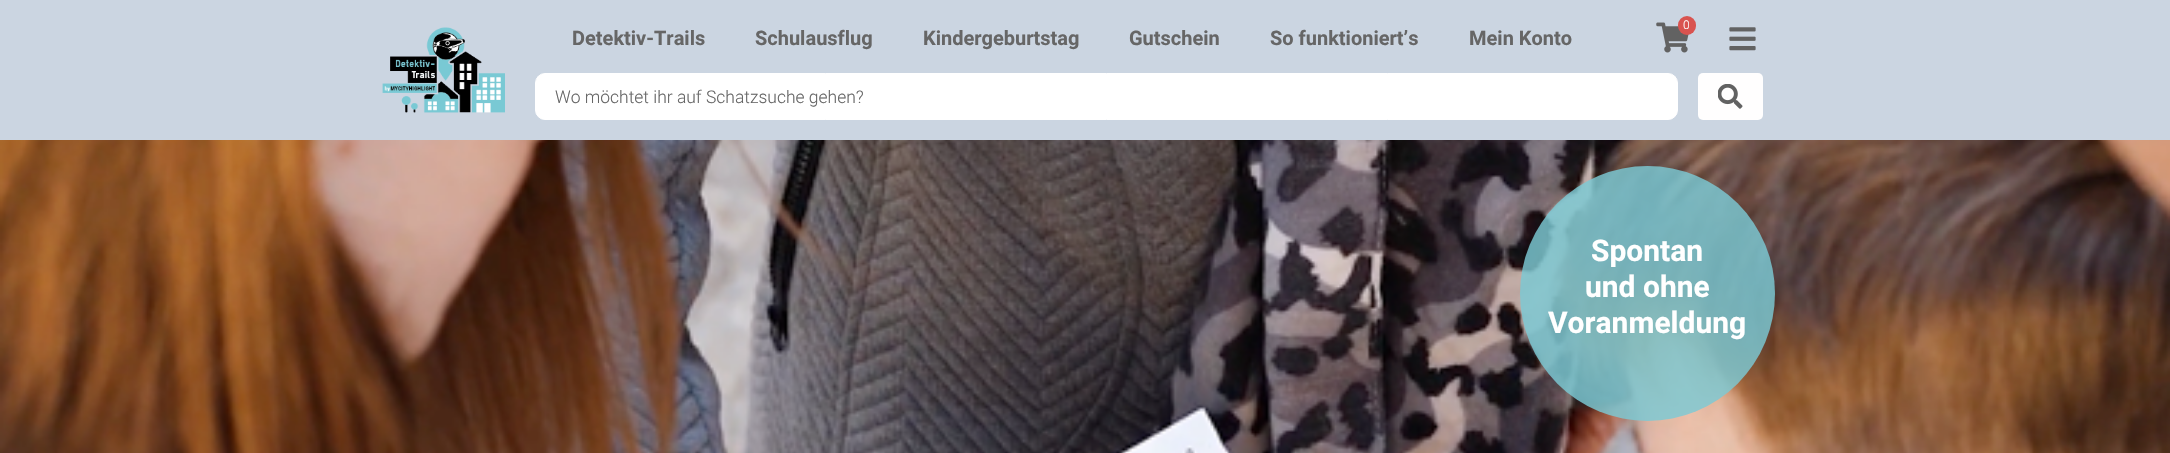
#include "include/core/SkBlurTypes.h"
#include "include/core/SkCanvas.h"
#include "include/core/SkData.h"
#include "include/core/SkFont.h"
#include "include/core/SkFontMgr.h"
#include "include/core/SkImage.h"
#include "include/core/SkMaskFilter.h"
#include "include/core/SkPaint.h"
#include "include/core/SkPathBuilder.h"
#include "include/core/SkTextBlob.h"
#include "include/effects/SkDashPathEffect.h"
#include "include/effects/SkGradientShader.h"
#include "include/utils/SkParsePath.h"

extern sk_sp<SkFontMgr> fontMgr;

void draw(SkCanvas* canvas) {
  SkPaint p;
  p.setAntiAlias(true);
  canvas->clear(SK_ColorWHITE);
  p.setColor(SkColorSetRGB(203, 213, 225));
  canvas->drawRect(SkRect::MakeLTRB(0, 0, 2170, 140), p);
  canvas->drawImageRect(SkImages::DeferredFromEncodedData(SkData::MakeFromFileName("images/1.png")), SkRect::MakeLTRB(382, 27, 505, 113), SkSamplingOptions());
  canvas->drawImageRect(SkImages::DeferredFromEncodedData(SkData::MakeFromFileName("images/2.png")), SkRect::MakeLTRB(1656, 22, 1689, 53), SkSamplingOptions());
  p.setColor(SkColorSetRGB(217, 83, 79));
  canvas->drawRoundRect(SkRect::MakeLTRB(1678, 16, 1696, 35), 9, 9, p);
  canvas->drawImageRect(SkImages::DeferredFromEncodedData(SkData::MakeFromFileName("images/3.png")), SkRect::MakeLTRB(1729, 27, 1756, 51), SkSamplingOptions());
  p.setColor(SK_ColorWHITE);
  canvas->drawRoundRect(SkRect::MakeLTRB(535.5f, 73.5f, 1677.5f, 119.5f), 9.5f, 9.5f, p);
  p.setStyle(SkPaint::kStroke_Style);
  p.setStrokeWidth(1);
  canvas->drawRoundRect(SkRect::MakeLTRB(535.5f, 73.5f, 1677.5f, 119.5f), 9.5f, 9.5f, p);
  p.setStyle(SkPaint::kFill_Style);
  p.setColor(SkColorSetRGB(255, 254, 254));
  canvas->drawRoundRect(SkRect::MakeLTRB(1698, 73, 1763, 120), 5, 5, p);
  canvas->drawImageRect(SkImages::DeferredFromEncodedData(SkData::MakeFromFileName("images/4.png")), SkRect::MakeLTRB(1718, 84, 1743, 109), SkSamplingOptions());
  canvas->drawImageRect(SkImages::DeferredFromEncodedData(SkData::MakeFromFileName("images/5.png")), SkRect::MakeLTRB(0, 140, 2170, 453), SkSamplingOptions());
  p.setColor(SkColorSetARGB(209, 123, 201, 212));
  canvas->drawCircle(1647.5f, 293.5f, 127.5f, p);
  SkFont font1(fontMgr->matchFamilyStyle("Roboto", SkFontStyle(300, SkFontStyle::kNormal_Width, SkFontStyle::kUpright_Slant)), 12);
  font1.setSubpixel(true);
  p.setColor(SK_ColorWHITE);
  canvas->drawString("0", 1683, 29, font1, p);
  SkFont font2(fontMgr->matchFamilyStyle("Roboto", SkFontStyle::Bold()), 20);
  font2.setSubpixel(true);
  p.setColor(SkColorSetRGB(102, 102, 102));
  canvas->drawString("Detektiv-Trails", 572, 45, font2, p);
  canvas->drawString("Schulausflug", 755, 45, font2, p);
  canvas->drawString("Kindergeburtstag", 923, 45, font2, p);
  canvas->drawString("Gutschein", 1129, 45, font2, p);
  canvas->drawString("So funktioniert’s", 1270, 45, font2, p);
  canvas->drawString("Mein Konto", 1469, 45, font2, p);
  SkFont font3(fontMgr->matchFamilyStyle("Roboto", SkFontStyle(300, SkFontStyle::kNormal_Width, SkFontStyle::kUpright_Slant)), 17.5f);
  font3.setSubpixel(true);
  canvas->drawString("Wo möchtet ihr auf Schatzsuche gehen?", 555, 103, font3, p);
  SkFont font4(fontMgr->matchFamilyStyle("Roboto", SkFontStyle::Bold()), 30);
  font4.setSubpixel(true);
  p.setColor(SK_ColorWHITE);
  canvas->drawString("Spontan", 1591, 261, font4, p);
  canvas->drawString("und ohne", 1585, 297, font4, p);
  canvas->drawString("Voranmeldung", 1548, 333, font4, p);
}
